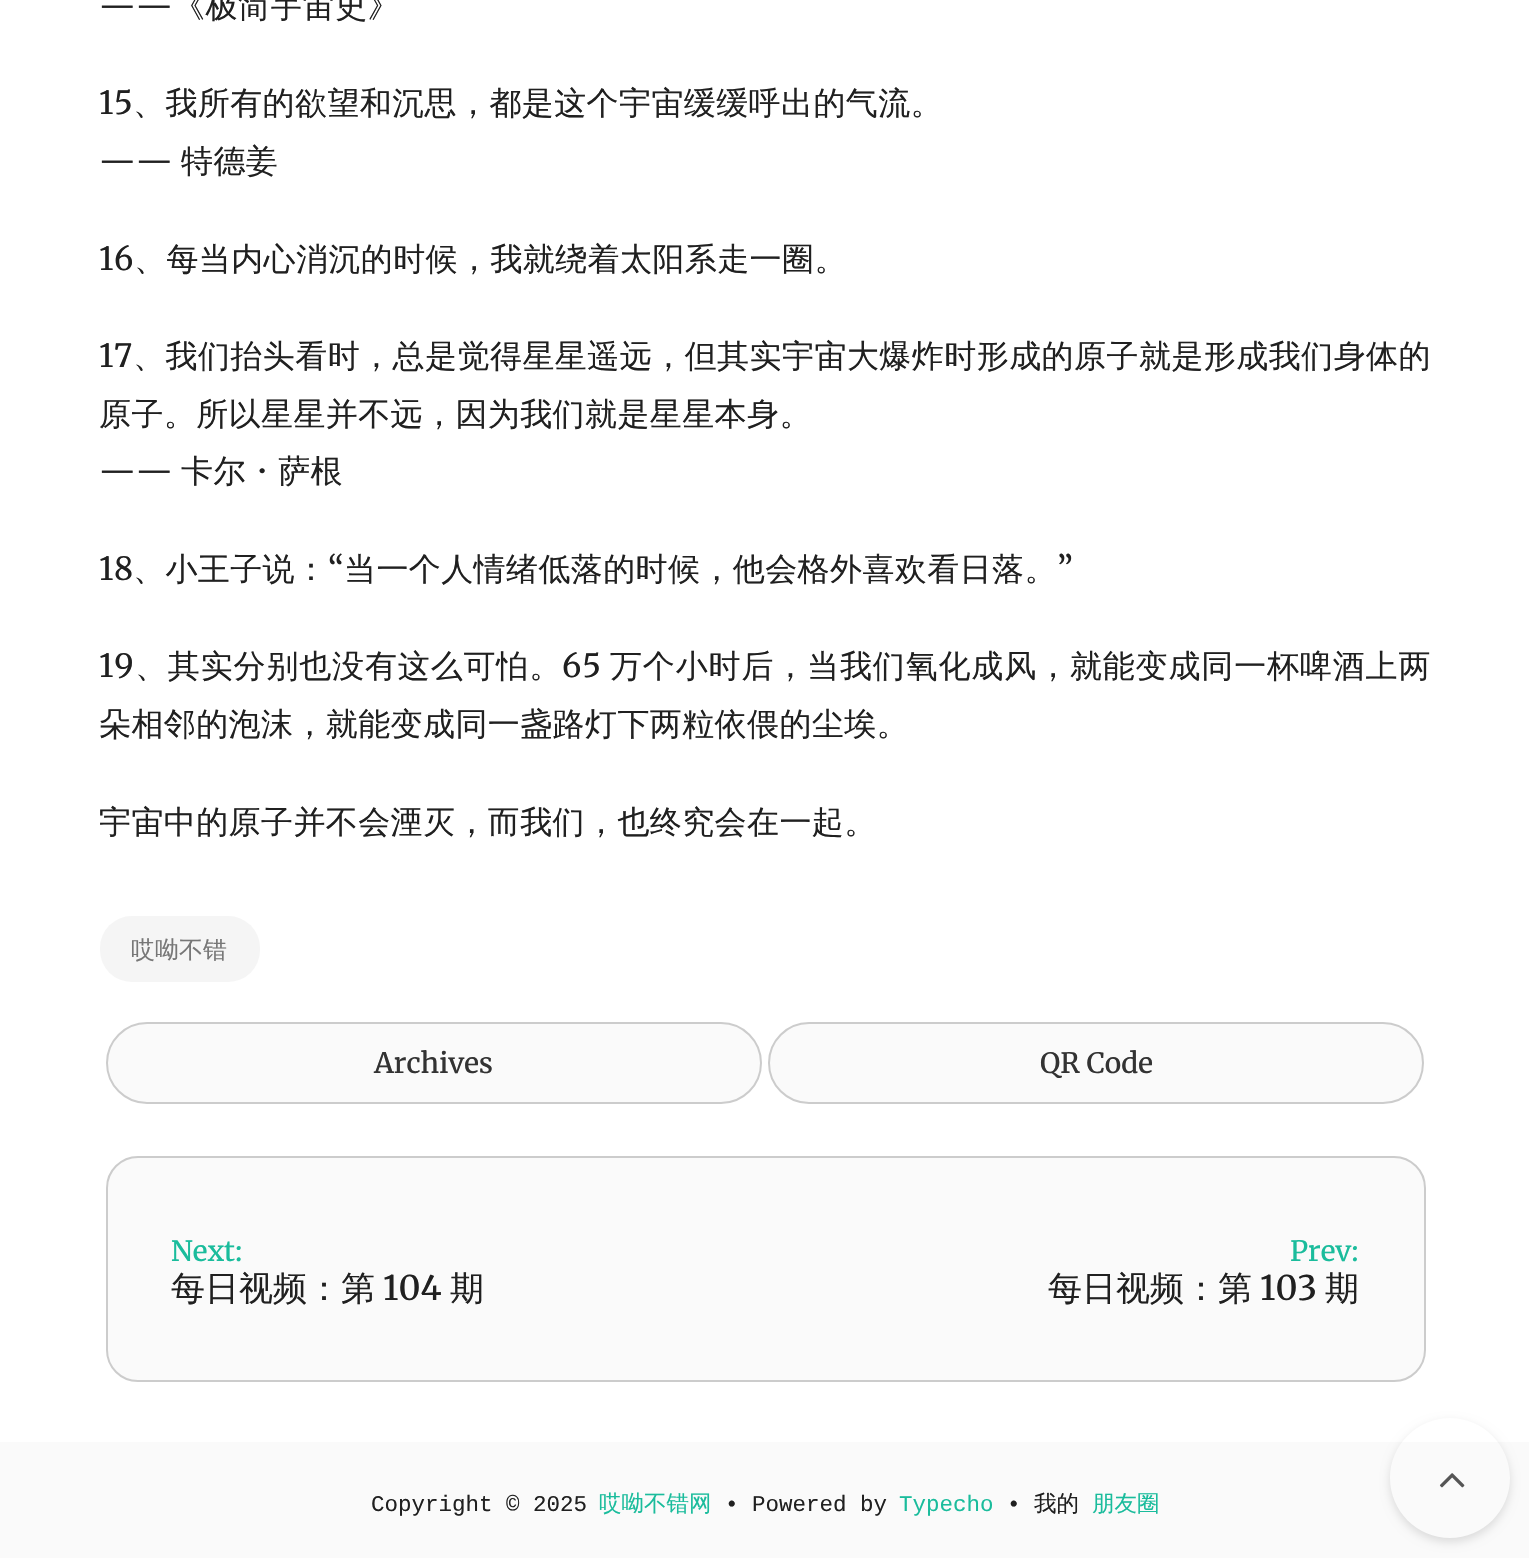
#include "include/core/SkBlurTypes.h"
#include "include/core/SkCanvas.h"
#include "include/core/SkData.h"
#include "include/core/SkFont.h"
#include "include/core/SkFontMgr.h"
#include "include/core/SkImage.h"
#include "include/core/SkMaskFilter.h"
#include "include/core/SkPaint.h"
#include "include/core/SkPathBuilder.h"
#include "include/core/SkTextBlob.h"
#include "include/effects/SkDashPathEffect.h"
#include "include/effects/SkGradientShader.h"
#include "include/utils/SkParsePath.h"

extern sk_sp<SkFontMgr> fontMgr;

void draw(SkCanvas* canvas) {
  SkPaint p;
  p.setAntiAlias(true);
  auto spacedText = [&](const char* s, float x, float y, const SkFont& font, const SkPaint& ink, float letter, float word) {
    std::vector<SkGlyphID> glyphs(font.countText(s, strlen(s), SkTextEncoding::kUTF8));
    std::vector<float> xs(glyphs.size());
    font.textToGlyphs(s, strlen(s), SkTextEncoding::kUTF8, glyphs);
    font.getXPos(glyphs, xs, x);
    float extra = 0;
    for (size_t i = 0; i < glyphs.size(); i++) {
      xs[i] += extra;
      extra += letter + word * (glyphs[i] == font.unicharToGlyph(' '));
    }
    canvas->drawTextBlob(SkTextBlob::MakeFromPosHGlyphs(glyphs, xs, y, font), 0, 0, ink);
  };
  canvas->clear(SkColorSetRGB(250, 250, 250));
  p.setColor(SK_ColorWHITE);
  canvas->drawRect(SkRect::MakeLTRB(0, 0, 1529, 1442), p);
  p.setColor(SkColorSetRGB(245, 245, 245));
  canvas->drawRoundRect(SkRect::MakeLTRB(100, 916, 260, 982), 32, 32, p);
  p.setColor(SkColorSetRGB(250, 250, 250));
  canvas->drawRoundRect(SkRect::MakeLTRB(107, 1023, 761, 1103), 40, 40, p);
  p.setStyle(SkPaint::kStroke_Style);
  p.setStrokeWidth(2);
  p.setColor(SkColorSetRGB(204, 204, 204));
  canvas->drawRoundRect(SkRect::MakeLTRB(107, 1023, 761, 1103), 40, 40, p);
  p.setStyle(SkPaint::kFill_Style);
  p.setColor(SkColorSetRGB(250, 250, 250));
  canvas->drawRoundRect(SkRect::MakeLTRB(769, 1023, 1423, 1103), 40, 40, p);
  p.setStyle(SkPaint::kStroke_Style);
  p.setColor(SkColorSetRGB(204, 204, 204));
  canvas->drawRoundRect(SkRect::MakeLTRB(769, 1023, 1423, 1103), 40, 40, p);
  p.setStyle(SkPaint::kFill_Style);
  p.setColor(SkColorSetRGB(250, 250, 250));
  canvas->drawRoundRect(SkRect::MakeLTRB(107, 1157, 1425, 1381), 31, 31, p);
  p.setStyle(SkPaint::kStroke_Style);
  p.setColor(SkColorSetRGB(204, 204, 204));
  canvas->drawRoundRect(SkRect::MakeLTRB(107, 1157, 1425, 1381), 31, 31, p);
  canvas->save();
  canvas->clipPath(SkPathBuilder(SkPathFillType::kEvenOdd).moveTo(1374, 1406).lineTo(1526, 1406).lineTo(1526, 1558).lineTo(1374, 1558).close().moveTo(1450, 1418).cubicTo(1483, 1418, 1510, 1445, 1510, 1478).cubicTo(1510, 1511, 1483, 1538, 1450, 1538).cubicTo(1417, 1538, 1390, 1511, 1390, 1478).cubicTo(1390, 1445, 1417, 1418, 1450, 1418).close().detach(), true);
  p.setStyle(SkPaint::kFill_Style);
  p.setColor(SkColorSetARGB(31, 0, 0, 0));
  p.setMaskFilter(SkMaskFilter::MakeBlur(kNormal_SkBlurStyle, 5));
  canvas->drawRoundRect(SkRect::MakeLTRB(1390, 1422, 1510, 1542), 60, 60, p);
  p.setMaskFilter(nullptr);
  canvas->restore();
  canvas->drawImageRect(SkImages::DeferredFromEncodedData(SkData::MakeFromFileName("images/1.png")), SkRect::MakeLTRB(1439, 1473, 1465, 1488), SkSamplingOptions());
  SkFont font1(fontMgr->matchFamilyStyle("Merriweather", SkFontStyle::Normal()), 32);
  font1.setSubpixel(true);
  p.setColor(SkColorSetRGB(32, 32, 32));
  spacedText("——", 99, 17, font1, p, 0.4f, 0);
  SkFont font2(fontMgr->matchFamilyStyle("WenQuanYi Zen Hei", SkFontStyle(500, SkFontStyle::kNormal_Width, SkFontStyle::kUpright_Slant)), 32);
  font2.setSubpixel(true);
  spacedText("《极简宇宙史》", 173, 17, font2, p, 0.4f, 0);
  spacedText("15", 99, 114, font1, p, 0.4f, 0);
  spacedText("、我所有的欲望和沉思，都是这个宇宙缓缓呼出的气流。", 133, 114, font2, p, 0.4f, 0);
  spacedText("——", 99, 172, font1, p, 0.4f, 0);
  spacedText("特德姜", 181, 172, font2, p, 0.4f, 0);
  spacedText("16", 99, 270, font1, p, 0.4f, 0);
  spacedText("、每当内心消沉的时候，我就绕着太阳系走一圈。", 134, 270, font2, p, 0.4f, 0);
  spacedText("17", 99, 367, font1, p, 0.45f, 0);
  spacedText("、我们抬头看时，总是觉得星星遥远，但其实宇宙大爆炸时形成的原子就是形成我们身体的", 133, 367, font2, p, 0.45f, 0);
  spacedText("原子。所以星星并不远，因为我们就是星星本身。", 99, 425, font2, p, 0.4f, 0);
  spacedText("——", 99, 482, font1, p, 0.4f, 0);
  spacedText("卡尔・萨根", 181, 482, font2, p, 0.4f, 0);
  spacedText("18", 99, 580, font1, p, 0.4f, 0);
  spacedText("、小王子说：", 133, 580, font2, p, 0.4f, 0);
  spacedText("“", 328, 580, font1, p, 0.4f, 0);
  spacedText("当一个人情绪低落的时候，他会格外喜欢看日落。", 344, 580, font2, p, 0.4f, 0);
  spacedText("”", 1057, 580, font1, p, 0.4f, 0);
  spacedText("19", 99, 677, font1, p, 0.85f, 0);
  spacedText("、其实分别也没有这么可怕。", 135, 677, font2, p, 0.85f, 0);
  spacedText("65", 562, 677, font1, p, 0.85f, 0);
  spacedText("万个小时后，当我们氧化成风，就能变成同一杯啤酒上两", 610, 677, font2, p, 0.85f, 0);
  spacedText("朵相邻的泡沫，就能变成同一盏路灯下两粒依偎的尘埃。", 99, 735, font2, p, 0.4f, 0);
  spacedText("宇宙中的原子并不会湮灭，而我们，也终究会在一起。", 99, 833, font2, p, 0.4f, 0);
  SkFont font3(fontMgr->matchFamilyStyle("WenQuanYi Zen Hei", SkFontStyle(500, SkFontStyle::kNormal_Width, SkFontStyle::kUpright_Slant)), 24);
  font3.setSubpixel(true);
  p.setColor(SkColorSetRGB(119, 119, 119));
  canvas->drawString("哎呦不错", 131, 958, font3, p);
  SkFont font4(fontMgr->matchFamilyStyle("Merriweather", SkFontStyle(500, SkFontStyle::kNormal_Width, SkFontStyle::kUpright_Slant)), 28);
  font4.setSubpixel(true);
  p.setColor(SkColorSetRGB(51, 51, 51));
  canvas->drawString("Archives", 374, 1073, font4, p);
  canvas->drawString("QR Code", 1040, 1073, font4, p);
  p.setColor(SkColorSetRGB(26, 188, 156));
  canvas->drawString("Next:", 171, 1261, font4, p);
  SkFont font5(fontMgr->matchFamilyStyle("WenQuanYi Zen Hei", SkFontStyle(500, SkFontStyle::kNormal_Width, SkFontStyle::kUpright_Slant)), 34);
  font5.setSubpixel(true);
  p.setColor(SkColorSetRGB(32, 32, 32));
  canvas->drawString("每日视频：第", 171, 1300, font5, p);
  SkFont font6(fontMgr->matchFamilyStyle("Merriweather", SkFontStyle(500, SkFontStyle::kNormal_Width, SkFontStyle::kUpright_Slant)), 34);
  font6.setSubpixel(true);
  canvas->drawString("104", 383, 1300, font6, p);
  canvas->drawString("期", 450, 1300, font5, p);
  p.setColor(SkColorSetRGB(26, 188, 156));
  canvas->drawString("Prev:", 1290, 1261, font4, p);
  p.setColor(SkColorSetRGB(32, 32, 32));
  canvas->drawString("每日视频：第", 1048, 1300, font5, p);
  canvas->drawString("103", 1260, 1300, font6, p);
  canvas->drawString("期", 1325, 1300, font5, p);
  SkFont font7(fontMgr->matchFamilyStyle("Liberation Mono", SkFontStyle::Normal()), 22.5f);
  font7.setSubpixel(true);
  canvas->drawString("Copyright © 2025", 371, 1511, font7, p);
  SkFont font8(fontMgr->matchFamilyStyle("WenQuanYi Zen Hei", SkFontStyle(500, SkFontStyle::kNormal_Width, SkFontStyle::kUpright_Slant)), 22.5f);
  font8.setSubpixel(true);
  p.setColor(SkColorSetRGB(26, 188, 156));
  canvas->drawString("哎呦不错网", 599, 1511, font8, p);
  p.setColor(SkColorSetRGB(32, 32, 32));
  canvas->drawString("• Powered by", 725, 1511, font7, p);
  p.setColor(SkColorSetRGB(26, 188, 156));
  canvas->drawString("Typecho", 899, 1511, font7, p);
  p.setColor(SkColorSetRGB(32, 32, 32));
  canvas->drawString("•", 1007, 1511, font7, p);
  canvas->drawString("我的", 1034, 1511, font8, p);
  p.setColor(SkColorSetRGB(26, 188, 156));
  canvas->drawString("朋友圈", 1092, 1511, font8, p);
}
